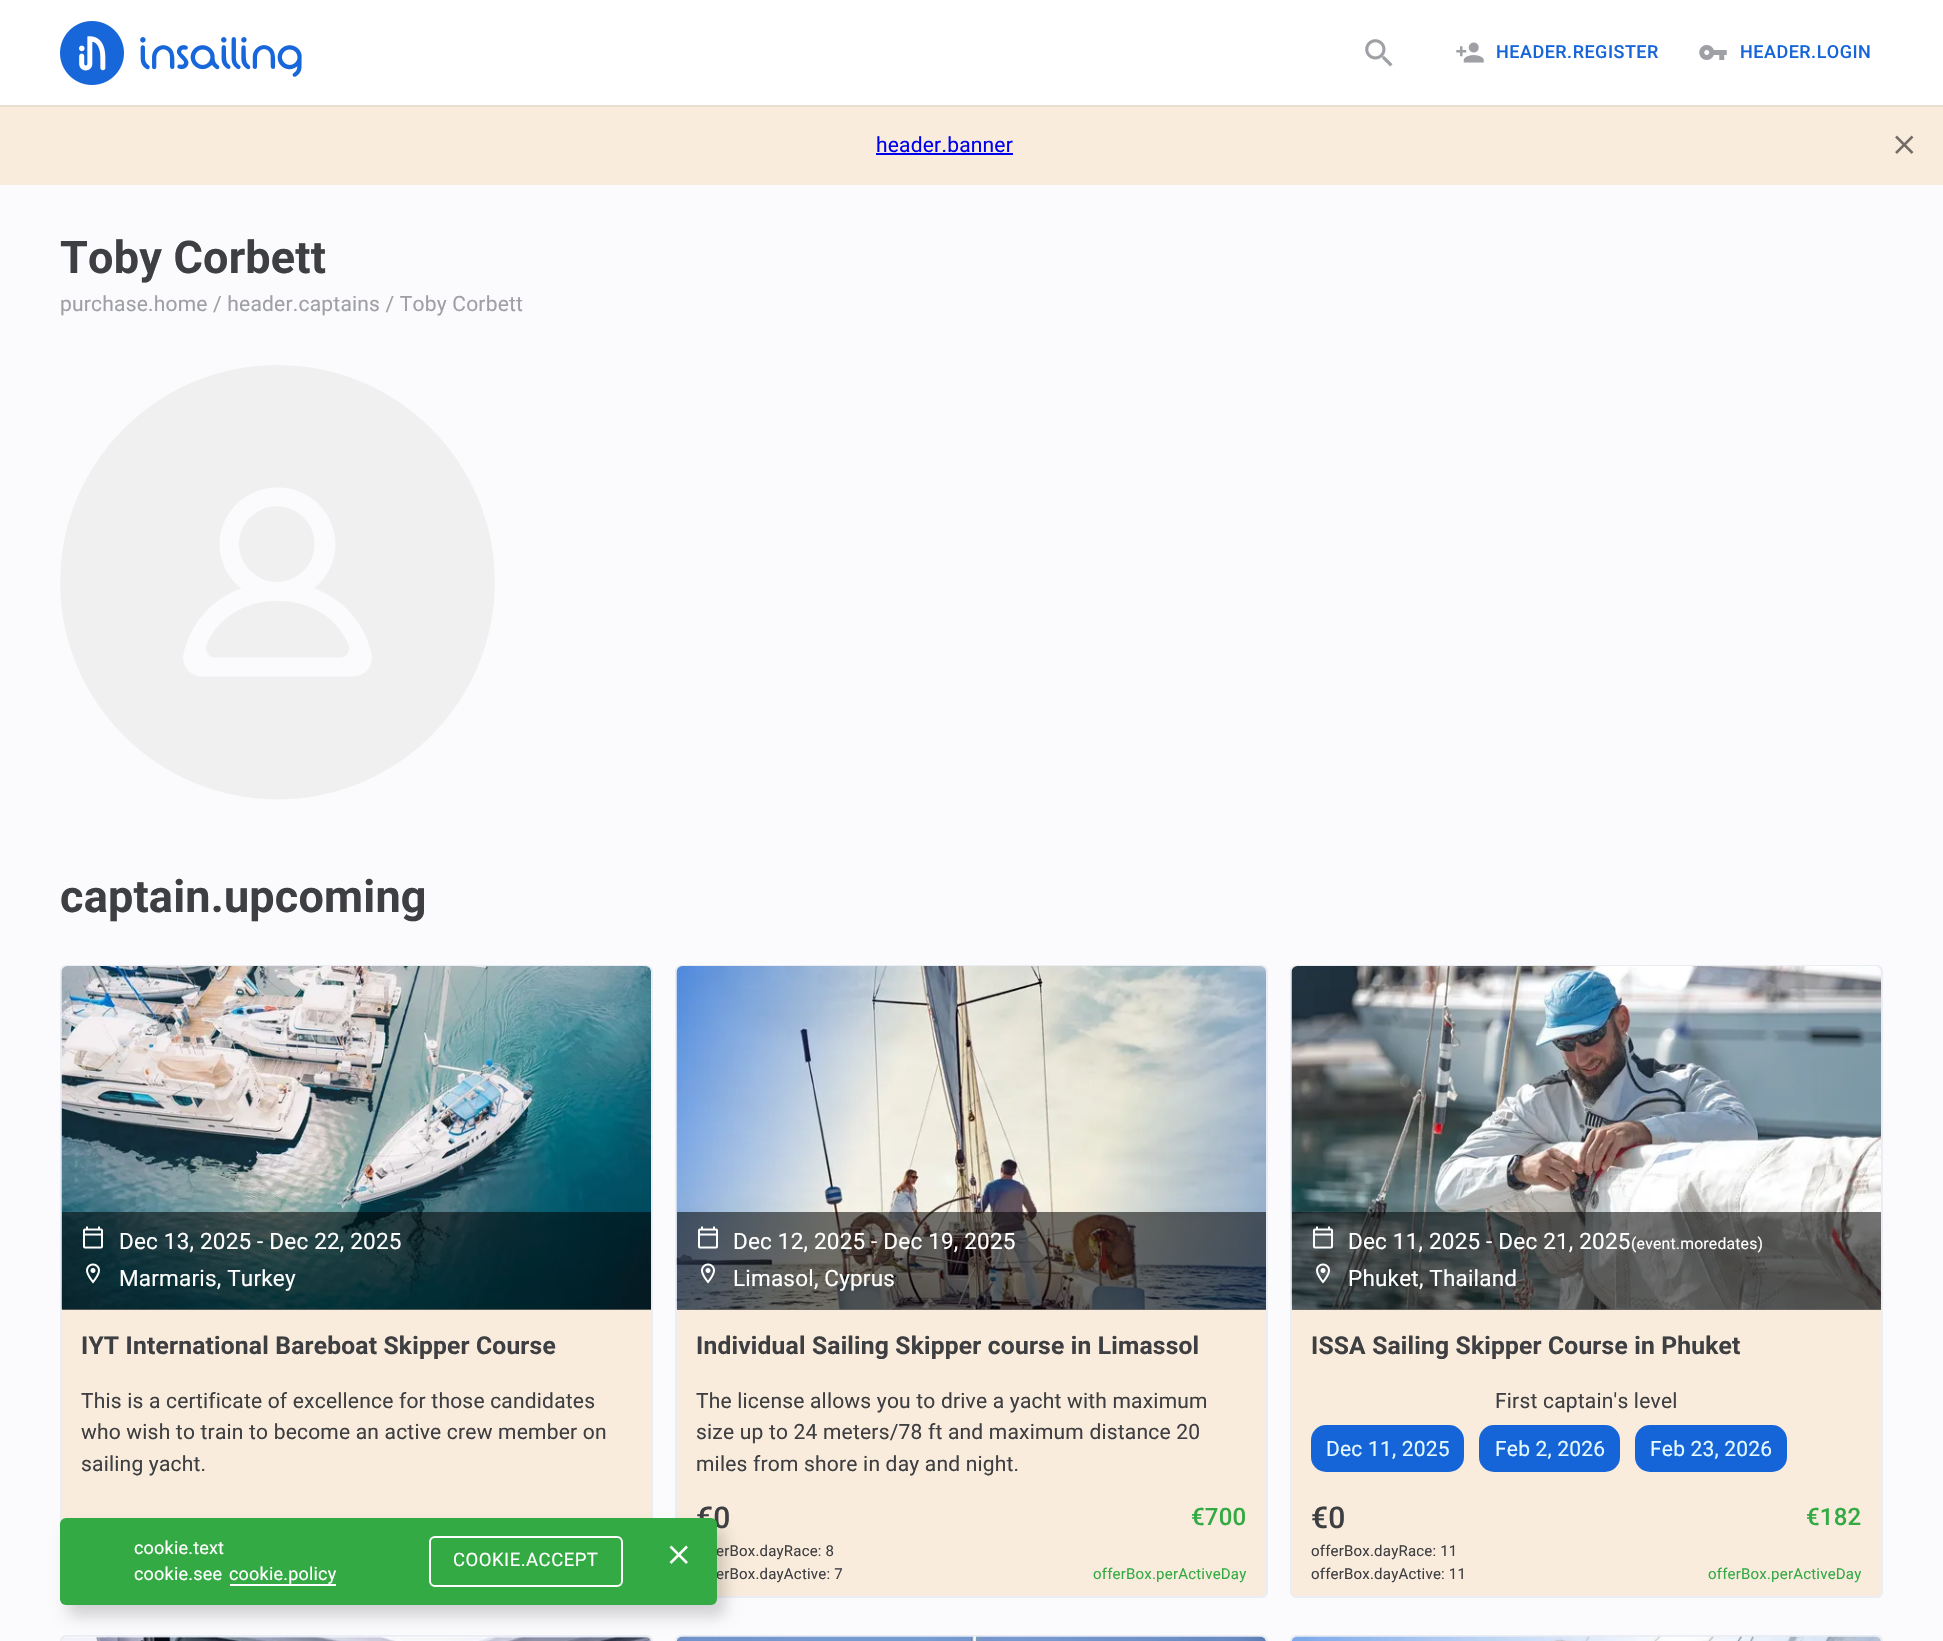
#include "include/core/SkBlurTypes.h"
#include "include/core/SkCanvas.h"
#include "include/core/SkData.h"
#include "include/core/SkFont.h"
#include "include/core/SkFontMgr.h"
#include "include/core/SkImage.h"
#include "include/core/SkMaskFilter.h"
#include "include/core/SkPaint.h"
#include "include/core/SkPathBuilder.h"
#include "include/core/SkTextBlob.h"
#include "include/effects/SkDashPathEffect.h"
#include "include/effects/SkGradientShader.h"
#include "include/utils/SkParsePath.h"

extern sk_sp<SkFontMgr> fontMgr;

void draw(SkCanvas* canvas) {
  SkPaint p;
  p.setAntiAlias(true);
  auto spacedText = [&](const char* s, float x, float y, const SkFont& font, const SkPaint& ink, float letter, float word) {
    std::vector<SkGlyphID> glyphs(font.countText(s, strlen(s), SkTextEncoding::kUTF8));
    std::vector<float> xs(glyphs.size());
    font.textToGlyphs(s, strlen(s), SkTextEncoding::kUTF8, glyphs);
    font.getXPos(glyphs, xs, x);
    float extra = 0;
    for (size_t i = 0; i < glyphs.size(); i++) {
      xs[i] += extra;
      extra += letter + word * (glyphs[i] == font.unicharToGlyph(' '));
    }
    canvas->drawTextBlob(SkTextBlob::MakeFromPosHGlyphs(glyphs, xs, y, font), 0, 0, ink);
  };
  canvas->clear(SkColorSetRGB(251, 251, 253));
  p.setColor(SkColorSetRGB(234, 222, 207));
  canvas->drawRect(SkRect::MakeLTRB(0, 105, 1943, 107), p);
  p.setColor(SK_ColorWHITE);
  canvas->drawRect(SkRect::MakeLTRB(0, 0, 1943, 105), p);
  canvas->drawImageRect(SkImages::DeferredFromEncodedData(SkData::MakeFromFileName("images/1.png")), SkRect::MakeLTRB(60, 21, 302, 85), SkSamplingOptions());
  canvas->drawImageRect(SkImages::DeferredFromEncodedData(SkData::MakeFromFileName("images/2.png")), SkRect::MakeLTRB(1365, 39, 1393, 67), SkSamplingOptions());
  canvas->drawImageRect(SkImages::DeferredFromEncodedData(SkData::MakeFromFileName("images/3.png")), SkRect::MakeLTRB(1456, 42, 1484, 63), SkSamplingOptions());
  canvas->drawImageRect(SkImages::DeferredFromEncodedData(SkData::MakeFromFileName("images/4.png")), SkRect::MakeLTRB(1699, 45, 1727, 60), SkSamplingOptions());
  p.setColor(SkColorSetRGB(249, 236, 220));
  canvas->drawRect(SkRect::MakeLTRB(0, 107, 1943, 185), p);
  p.setColor(SkColorSetRGB(0, 0, 238));
  canvas->drawRect(SkRect::MakeLTRB(876, 153, 1013, 155), p);
  canvas->drawImageRect(SkImages::DeferredFromEncodedData(SkData::MakeFromFileName("images/5.png")), SkRect::MakeLTRB(1895, 135, 1914, 154), SkSamplingOptions());
  canvas->drawImageRect(SkImages::DeferredFromEncodedData(SkData::MakeFromFileName("images/6.png")), SkRect::MakeLTRB(60, 365, 495, 800), SkSamplingOptions());
  p.setColor(SkColorSetRGB(249, 236, 220));
  canvas->drawRoundRect(SkRect::MakeLTRB(61, 966, 652, 1597), 5, 5, p);
  p.setStyle(SkPaint::kStroke_Style);
  p.setStrokeWidth(2);
  p.setColor(SkColorSetRGB(234, 237, 243));
  canvas->drawRoundRect(SkRect::MakeLTRB(61, 966, 652, 1597), 5, 5, p);
  canvas->drawImageRect(SkImages::DeferredFromEncodedData(SkData::MakeFromFileName("images/7.png")), SkRect::MakeLTRB(62, 967, 651, 1310), SkSamplingOptions());
  canvas->drawImageRect(SkImages::DeferredFromEncodedData(SkData::MakeFromFileName("images/8.png")), SkRect::MakeLTRB(61, 966, 651, 1310), SkSamplingOptions());
  p.setStyle(SkPaint::kFill_Style);
  p.setColor(SkColorSetARGB(140, 0, 0, 0));
  canvas->drawRect(SkRect::MakeLTRB(62, 1212, 651, 1310), p);
  canvas->drawImageRect(SkImages::DeferredFromEncodedData(SkData::MakeFromFileName("images/9.png")), SkRect::MakeLTRB(83, 1226, 103, 1249), SkSamplingOptions());
  canvas->drawImageRect(SkImages::DeferredFromEncodedData(SkData::MakeFromFileName("images/10.png")), SkRect::MakeLTRB(86, 1263, 100, 1284), SkSamplingOptions());
  p.setColor(SkColorSetRGB(249, 236, 220));
  canvas->drawRoundRect(SkRect::MakeLTRB(676, 966, 1267, 1597), 5, 5, p);
  p.setStyle(SkPaint::kStroke_Style);
  p.setColor(SkColorSetRGB(234, 237, 243));
  canvas->drawRoundRect(SkRect::MakeLTRB(676, 966, 1267, 1597), 5, 5, p);
  canvas->drawImageRect(SkImages::DeferredFromEncodedData(SkData::MakeFromFileName("images/7.png")), SkRect::MakeLTRB(677, 967, 1266, 1310), SkSamplingOptions());
  canvas->drawImageRect(SkImages::DeferredFromEncodedData(SkData::MakeFromFileName("images/11.png")), SkRect::MakeLTRB(676, 966, 1266, 1310), SkSamplingOptions());
  p.setStyle(SkPaint::kFill_Style);
  p.setColor(SkColorSetARGB(140, 0, 0, 0));
  canvas->drawRect(SkRect::MakeLTRB(677, 1212, 1266, 1310), p);
  canvas->drawImageRect(SkImages::DeferredFromEncodedData(SkData::MakeFromFileName("images/12.png")), SkRect::MakeLTRB(698, 1226, 718, 1249), SkSamplingOptions());
  canvas->drawImageRect(SkImages::DeferredFromEncodedData(SkData::MakeFromFileName("images/13.png")), SkRect::MakeLTRB(701, 1263, 715, 1284), SkSamplingOptions());
  p.setColor(SkColorSetRGB(249, 236, 220));
  canvas->drawRoundRect(SkRect::MakeLTRB(1291, 966, 1882, 1597), 5, 5, p);
  p.setStyle(SkPaint::kStroke_Style);
  p.setColor(SkColorSetRGB(234, 237, 243));
  canvas->drawRoundRect(SkRect::MakeLTRB(1291, 966, 1882, 1597), 5, 5, p);
  canvas->drawImageRect(SkImages::DeferredFromEncodedData(SkData::MakeFromFileName("images/7.png")), SkRect::MakeLTRB(1292, 967, 1881, 1310), SkSamplingOptions());
  canvas->drawImageRect(SkImages::DeferredFromEncodedData(SkData::MakeFromFileName("images/14.png")), SkRect::MakeLTRB(1291, 966, 1881, 1310), SkSamplingOptions());
  p.setStyle(SkPaint::kFill_Style);
  p.setColor(SkColorSetARGB(140, 0, 0, 0));
  canvas->drawRect(SkRect::MakeLTRB(1292, 1212, 1881, 1310), p);
  canvas->drawImageRect(SkImages::DeferredFromEncodedData(SkData::MakeFromFileName("images/15.png")), SkRect::MakeLTRB(1313, 1226, 1333, 1249), SkSamplingOptions());
  canvas->drawImageRect(SkImages::DeferredFromEncodedData(SkData::MakeFromFileName("images/16.png")), SkRect::MakeLTRB(1316, 1263, 1330, 1284), SkSamplingOptions());
  p.setColor(SkColorSetRGB(22, 101, 216));
  canvas->drawRoundRect(SkRect::MakeLTRB(1311, 1425, 1464, 1472), 15, 15, p);
  canvas->drawRoundRect(SkRect::MakeLTRB(1479, 1425, 1620, 1472), 15, 15, p);
  canvas->drawRoundRect(SkRect::MakeLTRB(1635, 1425, 1787, 1472), 15, 15, p);
  p.setColor(SkColorSetRGB(249, 236, 220));
  canvas->drawRoundRect(SkRect::MakeLTRB(61, 1636, 652, 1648), 5, 5, p);
  p.setStyle(SkPaint::kStroke_Style);
  p.setColor(SkColorSetRGB(234, 237, 243));
  canvas->drawRoundRect(SkRect::MakeLTRB(61, 1636, 652, 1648), 5, 5, p);
  canvas->drawImageRect(SkImages::DeferredFromEncodedData(SkData::MakeFromFileName("images/17.png")), SkRect::MakeLTRB(63, 1637, 651, 1641), SkSamplingOptions());
  canvas->drawImageRect(SkImages::DeferredFromEncodedData(SkData::MakeFromFileName("images/18.png")), SkRect::MakeLTRB(62, 1636, 651, 1641), SkSamplingOptions());
  p.setStyle(SkPaint::kFill_Style);
  p.setColor(SkColorSetRGB(249, 236, 220));
  canvas->drawRoundRect(SkRect::MakeLTRB(676, 1636, 1267, 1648), 5, 5, p);
  p.setStyle(SkPaint::kStroke_Style);
  p.setColor(SkColorSetRGB(234, 237, 243));
  canvas->drawRoundRect(SkRect::MakeLTRB(676, 1636, 1267, 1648), 5, 5, p);
  canvas->drawImageRect(SkImages::DeferredFromEncodedData(SkData::MakeFromFileName("images/17.png")), SkRect::MakeLTRB(678, 1637, 1266, 1641), SkSamplingOptions());
  canvas->drawImageRect(SkImages::DeferredFromEncodedData(SkData::MakeFromFileName("images/19.png")), SkRect::MakeLTRB(676, 1636, 1266, 1641), SkSamplingOptions());
  p.setStyle(SkPaint::kFill_Style);
  p.setColor(SkColorSetRGB(249, 236, 220));
  canvas->drawRoundRect(SkRect::MakeLTRB(1291, 1636, 1882, 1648), 5, 5, p);
  p.setStyle(SkPaint::kStroke_Style);
  p.setColor(SkColorSetRGB(234, 237, 243));
  canvas->drawRoundRect(SkRect::MakeLTRB(1291, 1636, 1882, 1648), 5, 5, p);
  canvas->drawImageRect(SkImages::DeferredFromEncodedData(SkData::MakeFromFileName("images/17.png")), SkRect::MakeLTRB(1293, 1637, 1881, 1641), SkSamplingOptions());
  canvas->drawImageRect(SkImages::DeferredFromEncodedData(SkData::MakeFromFileName("images/20.png")), SkRect::MakeLTRB(1291, 1636, 1881, 1641), SkSamplingOptions());
  p.setStyle(SkPaint::kFill_Style);
  p.setColor(SkColorSetARGB(43, 0, 0, 0));
  p.setMaskFilter(SkMaskFilter::MakeBlur(kNormal_SkBlurStyle, 7.5f));
  canvas->drawRoundRect(SkRect::MakeLTRB(68, 1529, 725, 1616), 6, 6, p);
  p.setMaskFilter(nullptr);
  SkFont font1(fontMgr->matchFamilyStyle("Roboto", SkFontStyle(500, SkFontStyle::kNormal_Width, SkFontStyle::kUpright_Slant)), 18);
  font1.setSubpixel(true);
  p.setColor(SkColorSetRGB(22, 101, 216));
  spacedText("HEADER.REGISTER", 1496, 58, font1, p, 0.5f, 0);
  spacedText("HEADER.LOGIN", 1740, 58, font1, p, 0.5f, 0);
  SkFont font2(fontMgr->matchFamilyStyle("Roboto", SkFontStyle::Normal()), 21);
  font2.setSubpixel(true);
  p.setColor(SkColorSetRGB(0, 0, 238));
  spacedText("header.banner", 876, 152, font2, p, 0.2f, 0);
  SkFont font3(fontMgr->matchFamilyStyle("Roboto", SkFontStyle::Bold()), 45);
  font3.setSubpixel(true);
  p.setColor(SkColorSetRGB(62, 63, 66));
  spacedText("Toby Corbett", 60, 273, font3, p, 0.2f, 0);
  p.setColor(SkColorSetRGB(158, 160, 165));
  spacedText("purchase.home / header.captains / Toby Corbett", 60, 311, font2, p, 0.2f, 0);
  p.setColor(SkColorSetRGB(62, 63, 66));
  spacedText("captain.upcoming", 60, 912, font3, p, 0.2f, 0);
  SkFont font4(fontMgr->matchFamilyStyle("Roboto", SkFontStyle::Normal()), 22.5f);
  font4.setSubpixel(true);
  p.setColor(SK_ColorWHITE);
  spacedText("Dec 13, 2025 - Dec 22, 2025", 119, 1249, font4, p, 0.2f, 0);
  spacedText("Marmaris, Turkey", 119, 1286, font4, p, 0.2f, 0);
  SkFont font5(fontMgr->matchFamilyStyle("Roboto", SkFontStyle::Bold()), 24.6f);
  font5.setSubpixel(true);
  p.setColor(SkColorSetRGB(62, 63, 66));
  spacedText("IYT International Bareboat Skipper Course", 81, 1354, font5, p, 0.2f, 0);
  spacedText("This is a certificate of excellence for those candidates", 81, 1408, font2, p, 0.2f, 0);
  spacedText("who wish to train to become an active crew member on", 81, 1439, font2, p, 0.2f, 0);
  spacedText("sailing yacht.", 81, 1471, font2, p, 0.2f, 0);
  p.setColor(SK_ColorWHITE);
  spacedText("Dec 12, 2025 - Dec 19, 2025", 733, 1249, font4, p, 0.2f, 0);
  spacedText("Limasol, Cyprus", 733, 1286, font4, p, 0.2f, 0);
  p.setColor(SkColorSetRGB(62, 63, 66));
  spacedText("Individual Sailing Skipper course in Limassol", 696, 1354, font5, p, 0.2f, 0);
  spacedText("The license allows you to drive a yacht with maximum", 696, 1408, font2, p, 0.2f, 0);
  spacedText("size up to 24 meters/78 ft and maximum distance 20", 696, 1439, font2, p, 0.2f, 0);
  spacedText("miles from shore in day and night.", 696, 1471, font2, p, 0.2f, 0);
  SkFont font6(fontMgr->matchFamilyStyle("Roboto", SkFontStyle(500, SkFontStyle::kNormal_Width, SkFontStyle::kUpright_Slant)), 30);
  font6.setSubpixel(true);
  spacedText("€0", 696, 1528, font6, p, 0.2f, 0);
  SkFont font7(fontMgr->matchFamilyStyle("Roboto", SkFontStyle::Normal()), 15);
  font7.setSubpixel(true);
  spacedText("erBox.dayRace: 8", 716, 1556, font7, p, 0.2f, 0);
  spacedText("erBox.dayActive: 7", 716, 1579, font7, p, 0.2f, 0);
  SkFont font8(fontMgr->matchFamilyStyle("Roboto", SkFontStyle(500, SkFontStyle::kNormal_Width, SkFontStyle::kUpright_Slant)), 24);
  font8.setSubpixel(true);
  p.setColor(SkColorSetRGB(52, 170, 68));
  spacedText("€700", 1191, 1525, font8, p, 0.2f, 0);
  spacedText("offerBox.perActiveDay", 1093, 1579, font7, p, 0.2f, 0);
  p.setColor(SK_ColorWHITE);
  spacedText("Dec 11, 2025 - Dec 21, 2025", 1348, 1249, font4, p, 0.2f, 0);
  SkFont font9(fontMgr->matchFamilyStyle("Roboto", SkFontStyle::Normal()), 15.75f);
  font9.setSubpixel(true);
  spacedText("(event.moredates)", 1631, 1249, font9, p, 0.2f, 0);
  spacedText("Phuket, Thailand", 1348, 1286, font4, p, 0.2f, 0);
  p.setColor(SkColorSetRGB(62, 63, 66));
  spacedText("ISSA Sailing Skipper Course in Phuket", 1311, 1354, font5, p, 0.2f, 0);
  spacedText("First captain's level", 1495, 1408, font2, p, 0.2f, 0);
  p.setColor(SkColorSetRGB(227, 250, 255));
  spacedText("Dec 11, 2025", 1326, 1456, font2, p, 0.2f, 0);
  spacedText("Feb 2, 2026", 1495, 1456, font2, p, 0.2f, 0);
  spacedText("Feb 23, 2026", 1650, 1456, font2, p, 0.2f, 0);
  p.setColor(SkColorSetRGB(62, 63, 66));
  spacedText("€0", 1311, 1528, font6, p, 0.2f, 0);
  spacedText("offerBox.dayRace: 11", 1311, 1556, font7, p, 0.2f, 0);
  spacedText("offerBox.dayActive: 11", 1311, 1579, font7, p, 0.2f, 0);
  p.setColor(SkColorSetRGB(52, 170, 68));
  spacedText("€182", 1806, 1525, font8, p, 0.2f, 0);
  spacedText("offerBox.perActiveDay", 1708, 1579, font7, p, 0.2f, 0);
  canvas->drawRoundRect(SkRect::MakeLTRB(60, 1518, 717, 1605), 6, 6, p);
  SkFont font10(fontMgr->matchFamilyStyle("Roboto", SkFontStyle::Normal()), 18);
  font10.setSubpixel(true);
  p.setColor(SK_ColorWHITE);
  spacedText("cookie.text", 134, 1554, font10, p, 0.2f, 0);
  spacedText("cookie.see", 134, 1580, font10, p, 0.2f, 0);
  spacedText("cookie.policy", 229, 1580, font10, p, 0.2f, 0);
  canvas->drawRect(SkRect::MakeLTRB(230, 1584, 336, 1586), p);
  p.setStyle(SkPaint::kStroke_Style);
  canvas->drawRoundRect(SkRect::MakeLTRB(430, 1537, 622, 1586), 5, 5, p);
  SkFont font11(fontMgr->matchFamilyStyle("Roboto", SkFontStyle::Normal()), 18.5f);
  font11.setSubpixel(true);
  p.setStyle(SkPaint::kFill_Style);
  spacedText("COOKIE.ACCEPT", 453, 1566, font11, p, 0.5f, 0);
  canvas->drawImageRect(SkImages::DeferredFromEncodedData(SkData::MakeFromFileName("images/21.png")), SkRect::MakeLTRB(669, 1545, 688, 1564), SkSamplingOptions());
}
